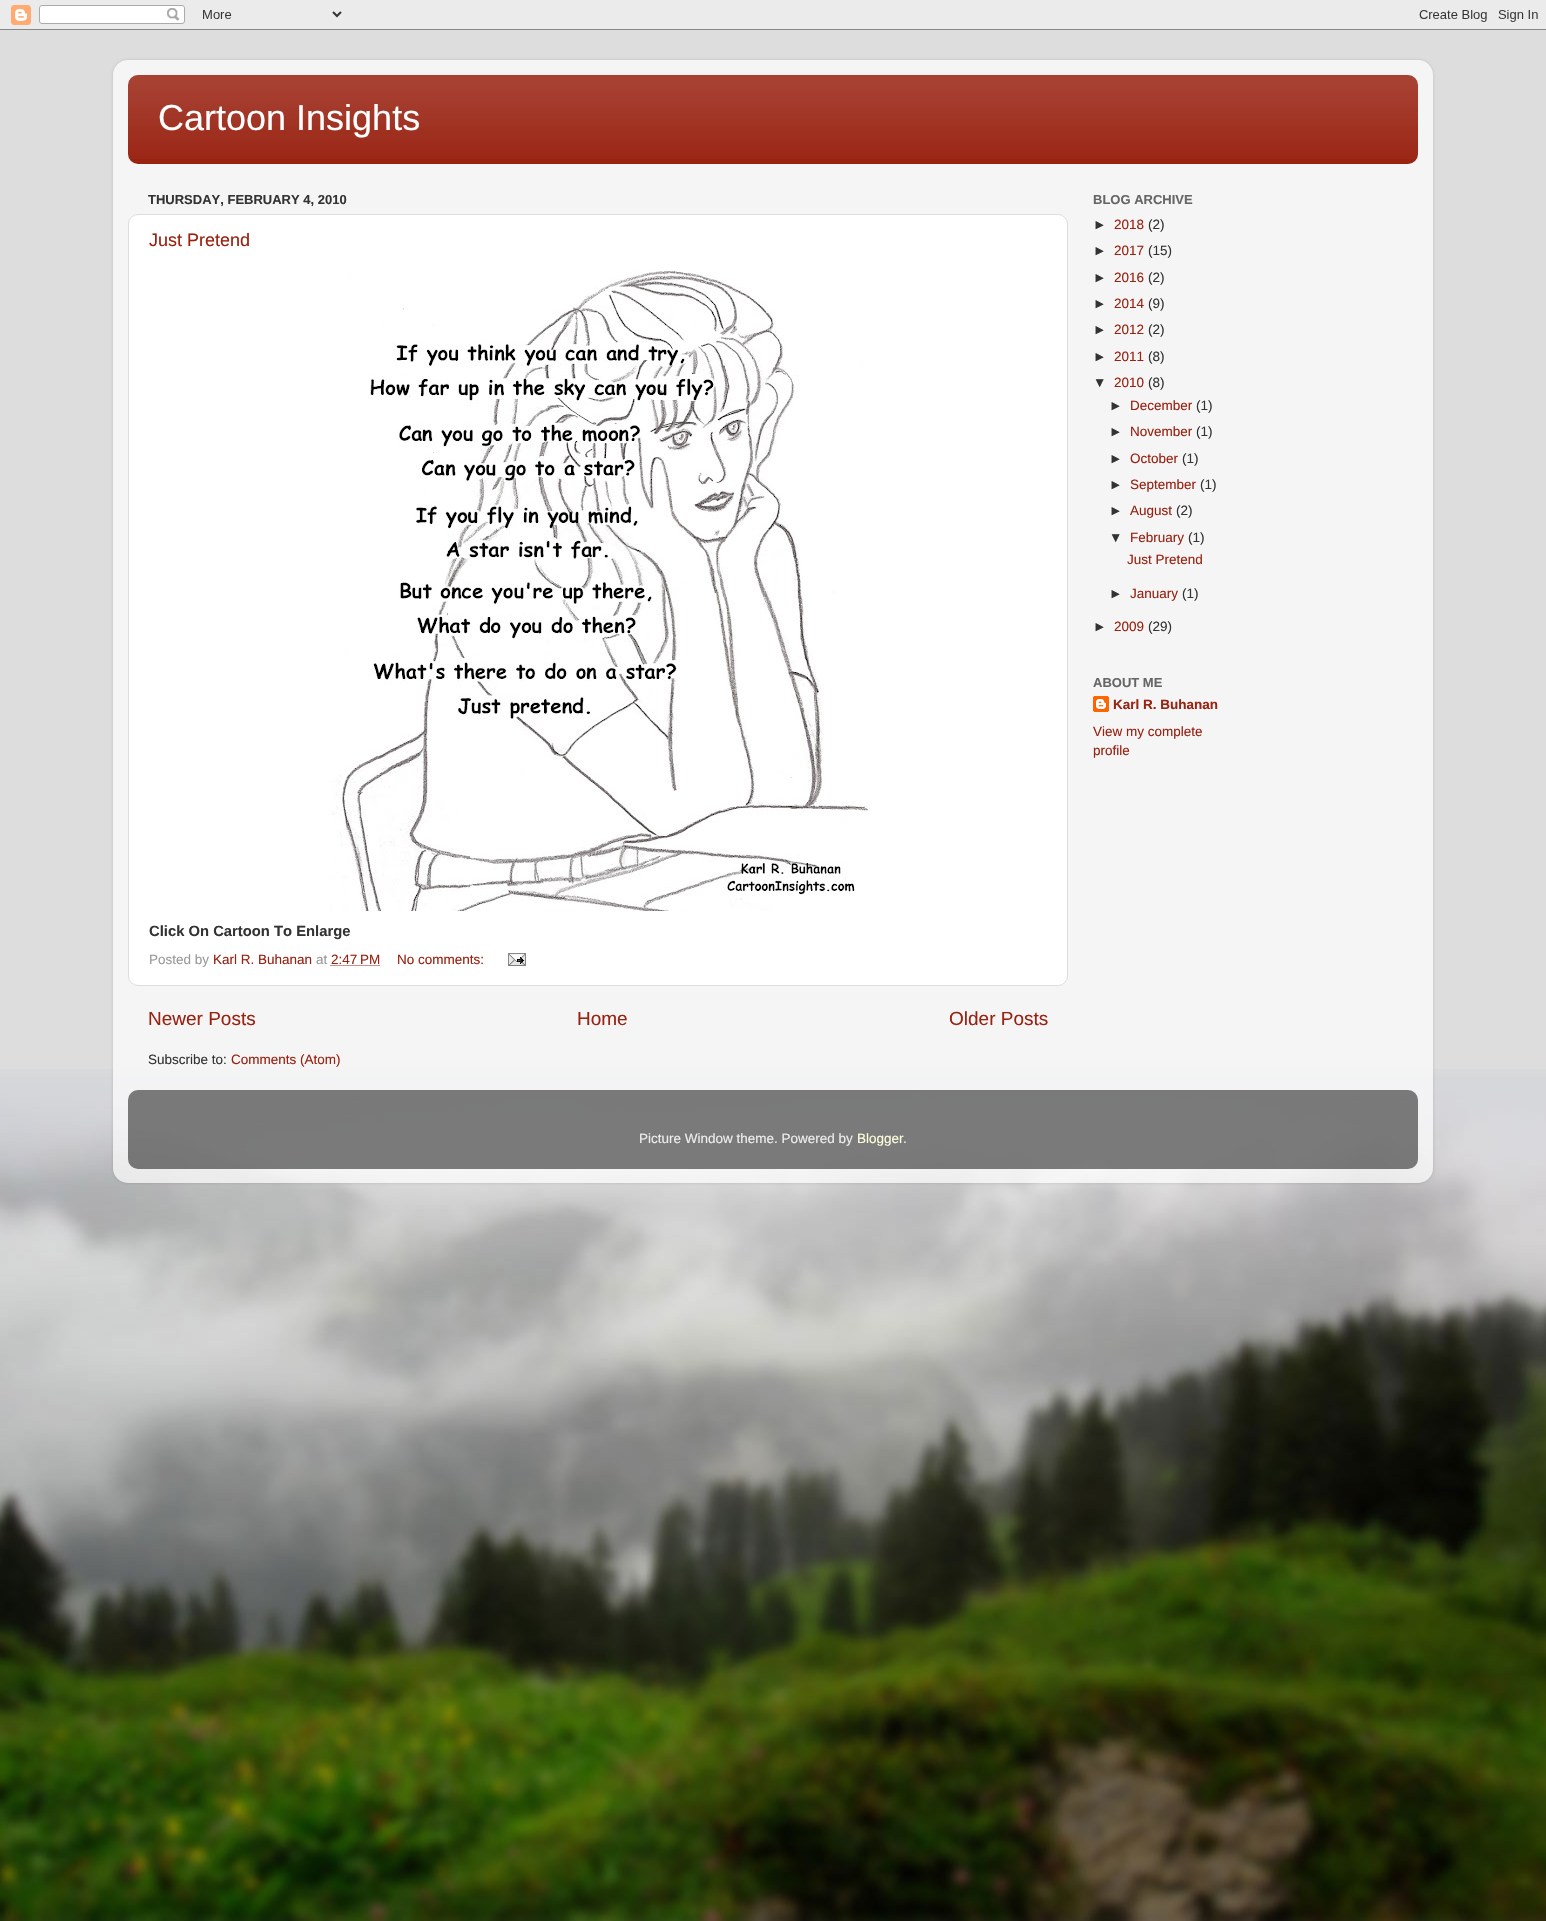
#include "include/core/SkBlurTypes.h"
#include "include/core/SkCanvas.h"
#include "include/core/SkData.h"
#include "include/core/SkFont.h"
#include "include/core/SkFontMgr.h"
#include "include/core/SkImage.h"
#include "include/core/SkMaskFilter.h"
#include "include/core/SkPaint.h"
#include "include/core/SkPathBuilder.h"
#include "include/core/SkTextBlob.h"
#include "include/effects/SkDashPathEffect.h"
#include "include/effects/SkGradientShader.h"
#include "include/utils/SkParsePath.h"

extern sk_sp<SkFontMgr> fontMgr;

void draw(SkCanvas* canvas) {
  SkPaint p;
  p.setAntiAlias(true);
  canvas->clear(SkColorSetRGB(221, 221, 221));
  canvas->drawImageRect(SkImages::DeferredFromEncodedData(SkData::MakeFromFileName("images/1.png")), SkRect::MakeLTRB(0, 1069, 1546, 1921), SkSamplingOptions());
  canvas->drawImageRect(SkImages::DeferredFromEncodedData(SkData::MakeFromFileName("images/2.png")), SkRect::MakeLTRB(0, 0, 1546, 30), SkSamplingOptions());
  canvas->save();
  canvas->clipPath(SkPathBuilder(SkPathFillType::kEvenOdd).moveTo(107, 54).lineTo(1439, 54).lineTo(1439, 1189).lineTo(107, 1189).close().moveTo(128, 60).lineTo(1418, 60).cubicTo(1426.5f, 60, 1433, 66.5f, 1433, 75).lineTo(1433, 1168).cubicTo(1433, 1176.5f, 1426.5f, 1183, 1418, 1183).lineTo(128, 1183).cubicTo(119.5f, 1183, 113, 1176.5f, 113, 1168).lineTo(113, 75).cubicTo(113, 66.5f, 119.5f, 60, 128, 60).close().detach(), true);
  p.setColor(SkColorSetARGB(38, 0, 0, 0));
  p.setMaskFilter(SkMaskFilter::MakeBlur(kNormal_SkBlurStyle, 1.5f));
  canvas->drawRoundRect(SkRect::MakeLTRB(113, 60, 1433, 1183), 15, 15, p);
  p.setMaskFilter(nullptr);
  canvas->restore();
  canvas->drawImageRect(SkImages::DeferredFromEncodedData(SkData::MakeFromFileName("images/3.png")), SkRect::MakeLTRB(113, 60, 1433, 1183), SkSamplingOptions());
  p.setColor(SkColorSetRGB(153, 34, 17));
  canvas->drawRoundRect(SkRect::MakeLTRB(128, 75, 1418, 164), 10, 10, p);
  canvas->drawImageRect(SkImages::DeferredFromEncodedData(SkData::MakeFromFileName("images/4.png")), SkRect::MakeLTRB(128, 75, 1418, 159), SkSamplingOptions());
  p.setColor(SK_ColorWHITE);
  canvas->drawRoundRect(SkRect::MakeLTRB(128.5f, 214.5f, 1067.5f, 985.5f), 9.5f, 9.5f, p);
  p.setStyle(SkPaint::kStroke_Style);
  p.setStrokeWidth(1);
  p.setColor(SkColorSetRGB(221, 221, 221));
  canvas->drawRoundRect(SkRect::MakeLTRB(128.5f, 214.5f, 1067.5f, 985.5f), 9.5f, 9.5f, p);
  canvas->drawImageRect(SkImages::DeferredFromEncodedData(SkData::MakeFromFileName("images/5.png")), SkRect::MakeLTRB(329, 271, 868, 911), SkSamplingOptions());
  p.setColor(SkColorSetRGB(153, 34, 17));
  p.setPathEffect(SkDashPathEffect::Make({{1, 1}}, 0));
  canvas->drawPath(SkPathBuilder().moveTo(330.5f, 965.5f).lineTo(380, 965.5f).detach(), p);
  p.setPathEffect(nullptr);
  canvas->drawImageRect(SkImages::DeferredFromEncodedData(SkData::MakeFromFileName("images/6.png")), SkRect::MakeLTRB(508, 953, 526, 966), SkSamplingOptions());
  canvas->drawImageRect(SkImages::DeferredFromEncodedData(SkData::MakeFromFileName("images/7.png")), SkRect::MakeLTRB(1093, 696, 1109, 712), SkSamplingOptions());
  canvas->drawImageRect(SkImages::DeferredFromEncodedData(SkData::MakeFromFileName("images/8.png")), SkRect::MakeLTRB(128, 1090, 1418, 1169), SkSamplingOptions());
  SkFont font1(fontMgr->matchFamilyStyle("Liberation Sans", SkFontStyle::Normal()), 36);
  font1.setSubpixel(true);
  p.setStyle(SkPaint::kFill_Style);
  p.setColor(SK_ColorWHITE);
  canvas->drawString("Cartoon Insights", 158, 130, font1, p);
  SkFont font2(fontMgr->matchFamilyStyle("Liberation Sans", SkFontStyle::Bold()), 13);
  font2.setSubpixel(true);
  p.setColor(SkColorSetRGB(51, 51, 51));
  canvas->drawString("THURSDAY, FEBRUARY 4, 2010", 148, 204, font2, p);
  SkFont font3(fontMgr->matchFamilyStyle("Liberation Sans", SkFontStyle::Normal()), 18);
  font3.setSubpixel(true);
  p.setColor(SkColorSetRGB(153, 34, 17));
  canvas->drawString("Just Pretend", 149, 246, font3, p);
  SkFont font4(fontMgr->matchFamilyStyle("Liberation Sans", SkFontStyle::Bold()), 14.8f);
  font4.setSubpixel(true);
  p.setColor(SkColorSetRGB(51, 51, 51));
  canvas->drawString("Click On Cartoon To Enlarge", 149, 936, font4, p);
  SkFont font5(fontMgr->matchFamilyStyle("Liberation Sans", SkFontStyle::Normal()), 13.5f);
  font5.setSubpixel(true);
  p.setColor(SkColorSetRGB(153, 153, 153));
  canvas->drawString("Posted by", 149, 964, font5, p);
  p.setColor(SkColorSetRGB(153, 34, 17));
  canvas->drawString("Karl R. Buhanan", 213, 964, font5, p);
  p.setColor(SkColorSetRGB(153, 153, 153));
  canvas->drawString("at", 316, 964, font5, p);
  p.setColor(SkColorSetRGB(153, 34, 17));
  canvas->drawString("2:47 PM", 331, 964, font5, p);
  canvas->drawString("No comments:", 397, 964, font5, p);
  SkFont font6(fontMgr->matchFamilyStyle("Liberation Sans", SkFontStyle::Normal()), 19);
  font6.setSubpixel(true);
  canvas->drawString("Newer Posts", 148, 1025, font6, p);
  canvas->drawString("Home", 577, 1025, font6, p);
  canvas->drawString("Older Posts", 949, 1025, font6, p);
  p.setColor(SkColorSetRGB(51, 51, 51));
  canvas->drawString("Subscribe to:", 148, 1064, font5, p);
  p.setColor(SkColorSetRGB(153, 34, 17));
  canvas->drawString("Comments (Atom)", 231, 1064, font5, p);
  p.setColor(SkColorSetRGB(102, 102, 102));
  canvas->drawString("BLOG ARCHIVE", 1093, 204, font2, p);
  p.setColor(SkColorSetRGB(51, 51, 51));
  canvas->drawString("►", 1093, 229, font5, p);
  p.setColor(SkColorSetRGB(153, 34, 17));
  canvas->drawString("2018", 1114, 229, font5, p);
  p.setColor(SkColorSetRGB(51, 51, 51));
  canvas->drawString("(2)", 1148, 229, font5, p);
  canvas->drawString("►", 1093, 255, font5, p);
  p.setColor(SkColorSetRGB(153, 34, 17));
  canvas->drawString("2017", 1114, 255, font5, p);
  p.setColor(SkColorSetRGB(51, 51, 51));
  canvas->drawString("(15)", 1148, 255, font5, p);
  canvas->drawString("►", 1093, 282, font5, p);
  p.setColor(SkColorSetRGB(153, 34, 17));
  canvas->drawString("2016", 1114, 282, font5, p);
  p.setColor(SkColorSetRGB(51, 51, 51));
  canvas->drawString("(2)", 1148, 282, font5, p);
  canvas->drawString("►", 1093, 308, font5, p);
  p.setColor(SkColorSetRGB(153, 34, 17));
  canvas->drawString("2014", 1114, 308, font5, p);
  p.setColor(SkColorSetRGB(51, 51, 51));
  canvas->drawString("(9)", 1148, 308, font5, p);
  canvas->drawString("►", 1093, 334, font5, p);
  p.setColor(SkColorSetRGB(153, 34, 17));
  canvas->drawString("2012", 1114, 334, font5, p);
  p.setColor(SkColorSetRGB(51, 51, 51));
  canvas->drawString("(2)", 1148, 334, font5, p);
  canvas->drawString("►", 1093, 361, font5, p);
  p.setColor(SkColorSetRGB(153, 34, 17));
  canvas->drawString("2011", 1114, 361, font5, p);
  p.setColor(SkColorSetRGB(51, 51, 51));
  canvas->drawString("(8)", 1148, 361, font5, p);
  canvas->drawString("▼", 1093, 387, font5, p);
  p.setColor(SkColorSetRGB(153, 34, 17));
  canvas->drawString("2010", 1114, 387, font5, p);
  p.setColor(SkColorSetRGB(51, 51, 51));
  canvas->drawString("(8)", 1148, 387, font5, p);
  canvas->drawString("►", 1109, 410, font5, p);
  p.setColor(SkColorSetRGB(153, 34, 17));
  canvas->drawString("December", 1130, 410, font5, p);
  p.setColor(SkColorSetRGB(51, 51, 51));
  canvas->drawString("(1)", 1196, 410, font5, p);
  canvas->drawString("►", 1109, 436, font5, p);
  p.setColor(SkColorSetRGB(153, 34, 17));
  canvas->drawString("November", 1130, 436, font5, p);
  p.setColor(SkColorSetRGB(51, 51, 51));
  canvas->drawString("(1)", 1196, 436, font5, p);
  canvas->drawString("►", 1109, 463, font5, p);
  p.setColor(SkColorSetRGB(153, 34, 17));
  canvas->drawString("October", 1130, 463, font5, p);
  p.setColor(SkColorSetRGB(51, 51, 51));
  canvas->drawString("(1)", 1182, 463, font5, p);
  canvas->drawString("►", 1109, 489, font5, p);
  p.setColor(SkColorSetRGB(153, 34, 17));
  canvas->drawString("September", 1130, 489, font5, p);
  p.setColor(SkColorSetRGB(51, 51, 51));
  canvas->drawString("(1)", 1200, 489, font5, p);
  canvas->drawString("►", 1109, 515, font5, p);
  p.setColor(SkColorSetRGB(153, 34, 17));
  canvas->drawString("August", 1130, 515, font5, p);
  p.setColor(SkColorSetRGB(51, 51, 51));
  canvas->drawString("(2)", 1176, 515, font5, p);
  canvas->drawString("▼", 1109, 542, font5, p);
  p.setColor(SkColorSetRGB(153, 34, 17));
  canvas->drawString("February", 1130, 542, font5, p);
  p.setColor(SkColorSetRGB(51, 51, 51));
  canvas->drawString("(1)", 1188, 542, font5, p);
  p.setColor(SkColorSetRGB(153, 34, 17));
  canvas->drawString("Just Pretend", 1127, 564, font5, p);
  p.setColor(SkColorSetRGB(51, 51, 51));
  canvas->drawString("►", 1109, 598, font5, p);
  p.setColor(SkColorSetRGB(153, 34, 17));
  canvas->drawString("January", 1130, 598, font5, p);
  p.setColor(SkColorSetRGB(51, 51, 51));
  canvas->drawString("(1)", 1182, 598, font5, p);
  canvas->drawString("►", 1093, 631, font5, p);
  p.setColor(SkColorSetRGB(153, 34, 17));
  canvas->drawString("2009", 1114, 631, font5, p);
  p.setColor(SkColorSetRGB(51, 51, 51));
  canvas->drawString("(29)", 1148, 631, font5, p);
  p.setColor(SkColorSetRGB(102, 102, 102));
  canvas->drawString("ABOUT ME", 1093, 687, font2, p);
  SkFont font7(fontMgr->matchFamilyStyle("Liberation Sans", SkFontStyle::Bold()), 13.5f);
  font7.setSubpixel(true);
  p.setColor(SkColorSetRGB(153, 34, 17));
  canvas->drawString("Karl R. Buhanan", 1113, 709, font7, p);
  canvas->drawString("View my complete", 1093, 736, font5, p);
  canvas->drawString("profile", 1093, 755, font5, p);
  p.setColor(SkColorSetRGB(238, 238, 238));
  canvas->drawString("Picture Window theme. Powered by", 639, 1143, font5, p);
  p.setColor(SkColorSetRGB(255, 255, 221));
  canvas->drawString("Blogger", 857, 1143, font5, p);
  p.setColor(SkColorSetRGB(238, 238, 238));
  canvas->drawString(".", 903, 1143, font5, p);
}
